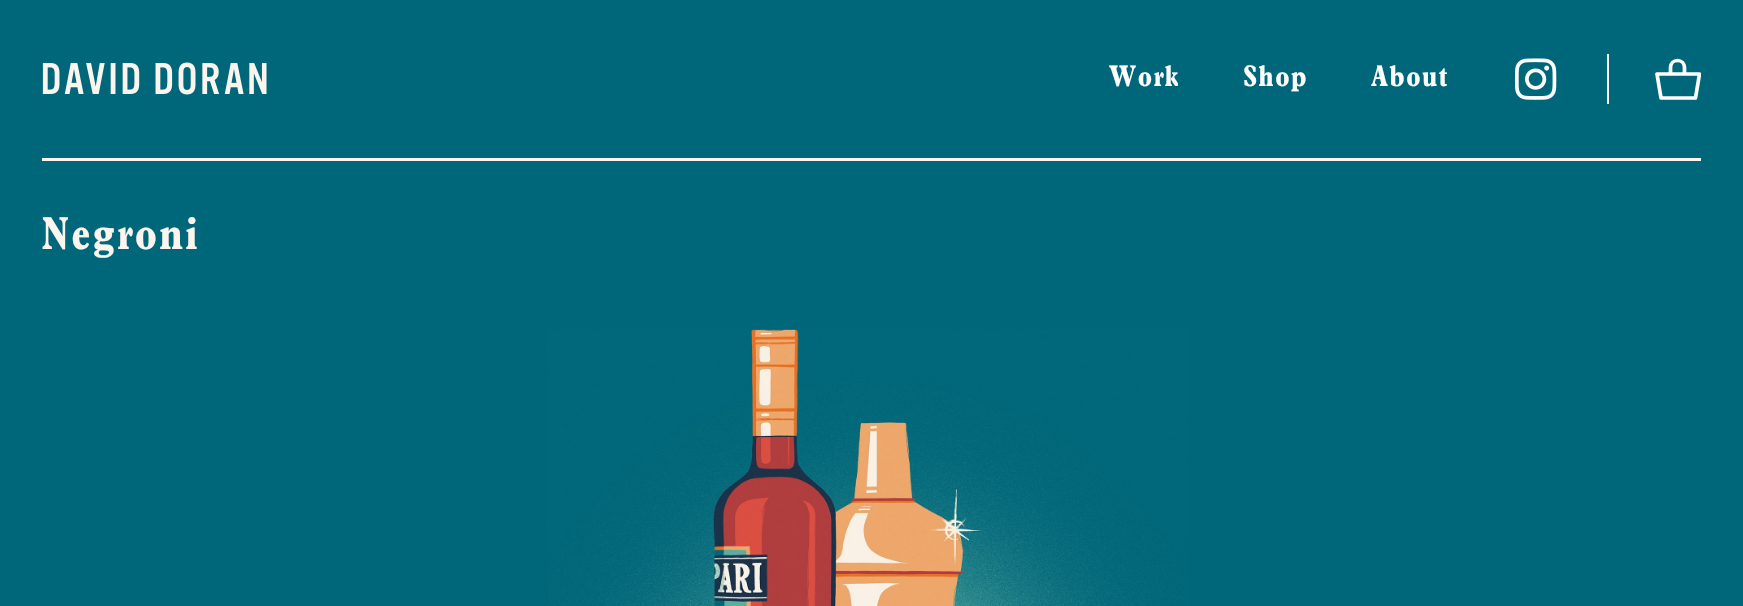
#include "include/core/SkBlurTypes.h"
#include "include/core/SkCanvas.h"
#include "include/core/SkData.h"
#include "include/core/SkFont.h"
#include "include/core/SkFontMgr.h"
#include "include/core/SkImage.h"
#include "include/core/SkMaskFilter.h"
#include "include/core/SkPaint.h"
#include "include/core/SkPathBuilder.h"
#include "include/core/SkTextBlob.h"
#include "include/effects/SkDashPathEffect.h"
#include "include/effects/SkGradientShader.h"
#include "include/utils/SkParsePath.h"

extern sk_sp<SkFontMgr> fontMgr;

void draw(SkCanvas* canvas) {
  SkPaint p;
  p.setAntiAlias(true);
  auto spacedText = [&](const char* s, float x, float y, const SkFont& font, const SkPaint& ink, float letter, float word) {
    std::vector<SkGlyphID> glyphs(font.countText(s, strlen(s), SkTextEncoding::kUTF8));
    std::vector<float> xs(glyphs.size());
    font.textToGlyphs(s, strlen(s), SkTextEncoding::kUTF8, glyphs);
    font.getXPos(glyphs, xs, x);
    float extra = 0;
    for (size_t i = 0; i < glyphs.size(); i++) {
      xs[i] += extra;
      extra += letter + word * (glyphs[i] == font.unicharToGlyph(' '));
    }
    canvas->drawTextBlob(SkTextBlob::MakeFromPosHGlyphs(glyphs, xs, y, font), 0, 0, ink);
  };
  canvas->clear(SkColorSetRGB(0, 103, 122));
  p.setColor(SkColorSetRGB(251, 245, 238));
  canvas->drawRect(SkRect::MakeLTRB(42, 158, 1701, 161), p);
  canvas->drawImageRect(SkImages::DeferredFromEncodedData(SkData::MakeFromFileName("images/1.png")), SkRect::MakeLTRB(42, 62, 267, 95), SkSamplingOptions());
  canvas->drawImageRect(SkImages::DeferredFromEncodedData(SkData::MakeFromFileName("images/2.png")), SkRect::MakeLTRB(1514, 58, 1557, 100), SkSamplingOptions());
  canvas->drawRect(SkRect::MakeLTRB(1607, 54, 1609, 104), p);
  canvas->save();
  canvas->clipRect(SkRect::MakeLTRB(1655, 56, 1701, 102));
  p.setStyle(SkPaint::kStroke_Style);
  p.setStrokeWidth(3.7f);
  p.setStrokeCap(SkPaint::kRound_Cap);
  p.setStrokeJoin(SkPaint::kRound_Join);
  p.setColor(SK_ColorWHITE);
  canvas->drawPath(SkPathBuilder().moveTo(1695.5f, 98).lineTo(1661, 98).lineTo(1657, 74).lineTo(1699.5f, 74).close().moveTo(1670.5f, 74).lineTo(1670.5f, 67.5f).cubicTo(1670.5f, 63.5f, 1673.5f, 60.5f, 1677.5f, 60.5f).cubicTo(1681.5f, 60.5f, 1684.5f, 63.5f, 1684.5f, 67.5f).lineTo(1684.5f, 74).detach(), p);
  canvas->restore();
  canvas->drawImageRect(SkImages::DeferredFromEncodedData(SkData::MakeFromFileName("images/3.png")), SkRect::MakeLTRB(547, 329, 1188, 606), SkSamplingOptions());
  SkFont font1(fontMgr->matchFamilyStyle("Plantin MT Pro", SkFontStyle::Bold()), 30);
  font1.setSubpixel(true);
  p.setStyle(SkPaint::kFill_Style);
  spacedText("Work", 1109, 86, font1, p, 1.5f, 0);
  spacedText("Shop", 1243, 86, font1, p, 1.5f, 0);
  spacedText("About", 1371, 86, font1, p, 1.5f, 0);
  SkFont font2(fontMgr->matchFamilyStyle("Plantin MT Pro", SkFontStyle::Bold()), 46.5f);
  font2.setSubpixel(true);
  p.setColor(SkColorSetRGB(251, 245, 238));
  spacedText("Negroni", 42, 249, font2, p, 2.25f, 0);
}
